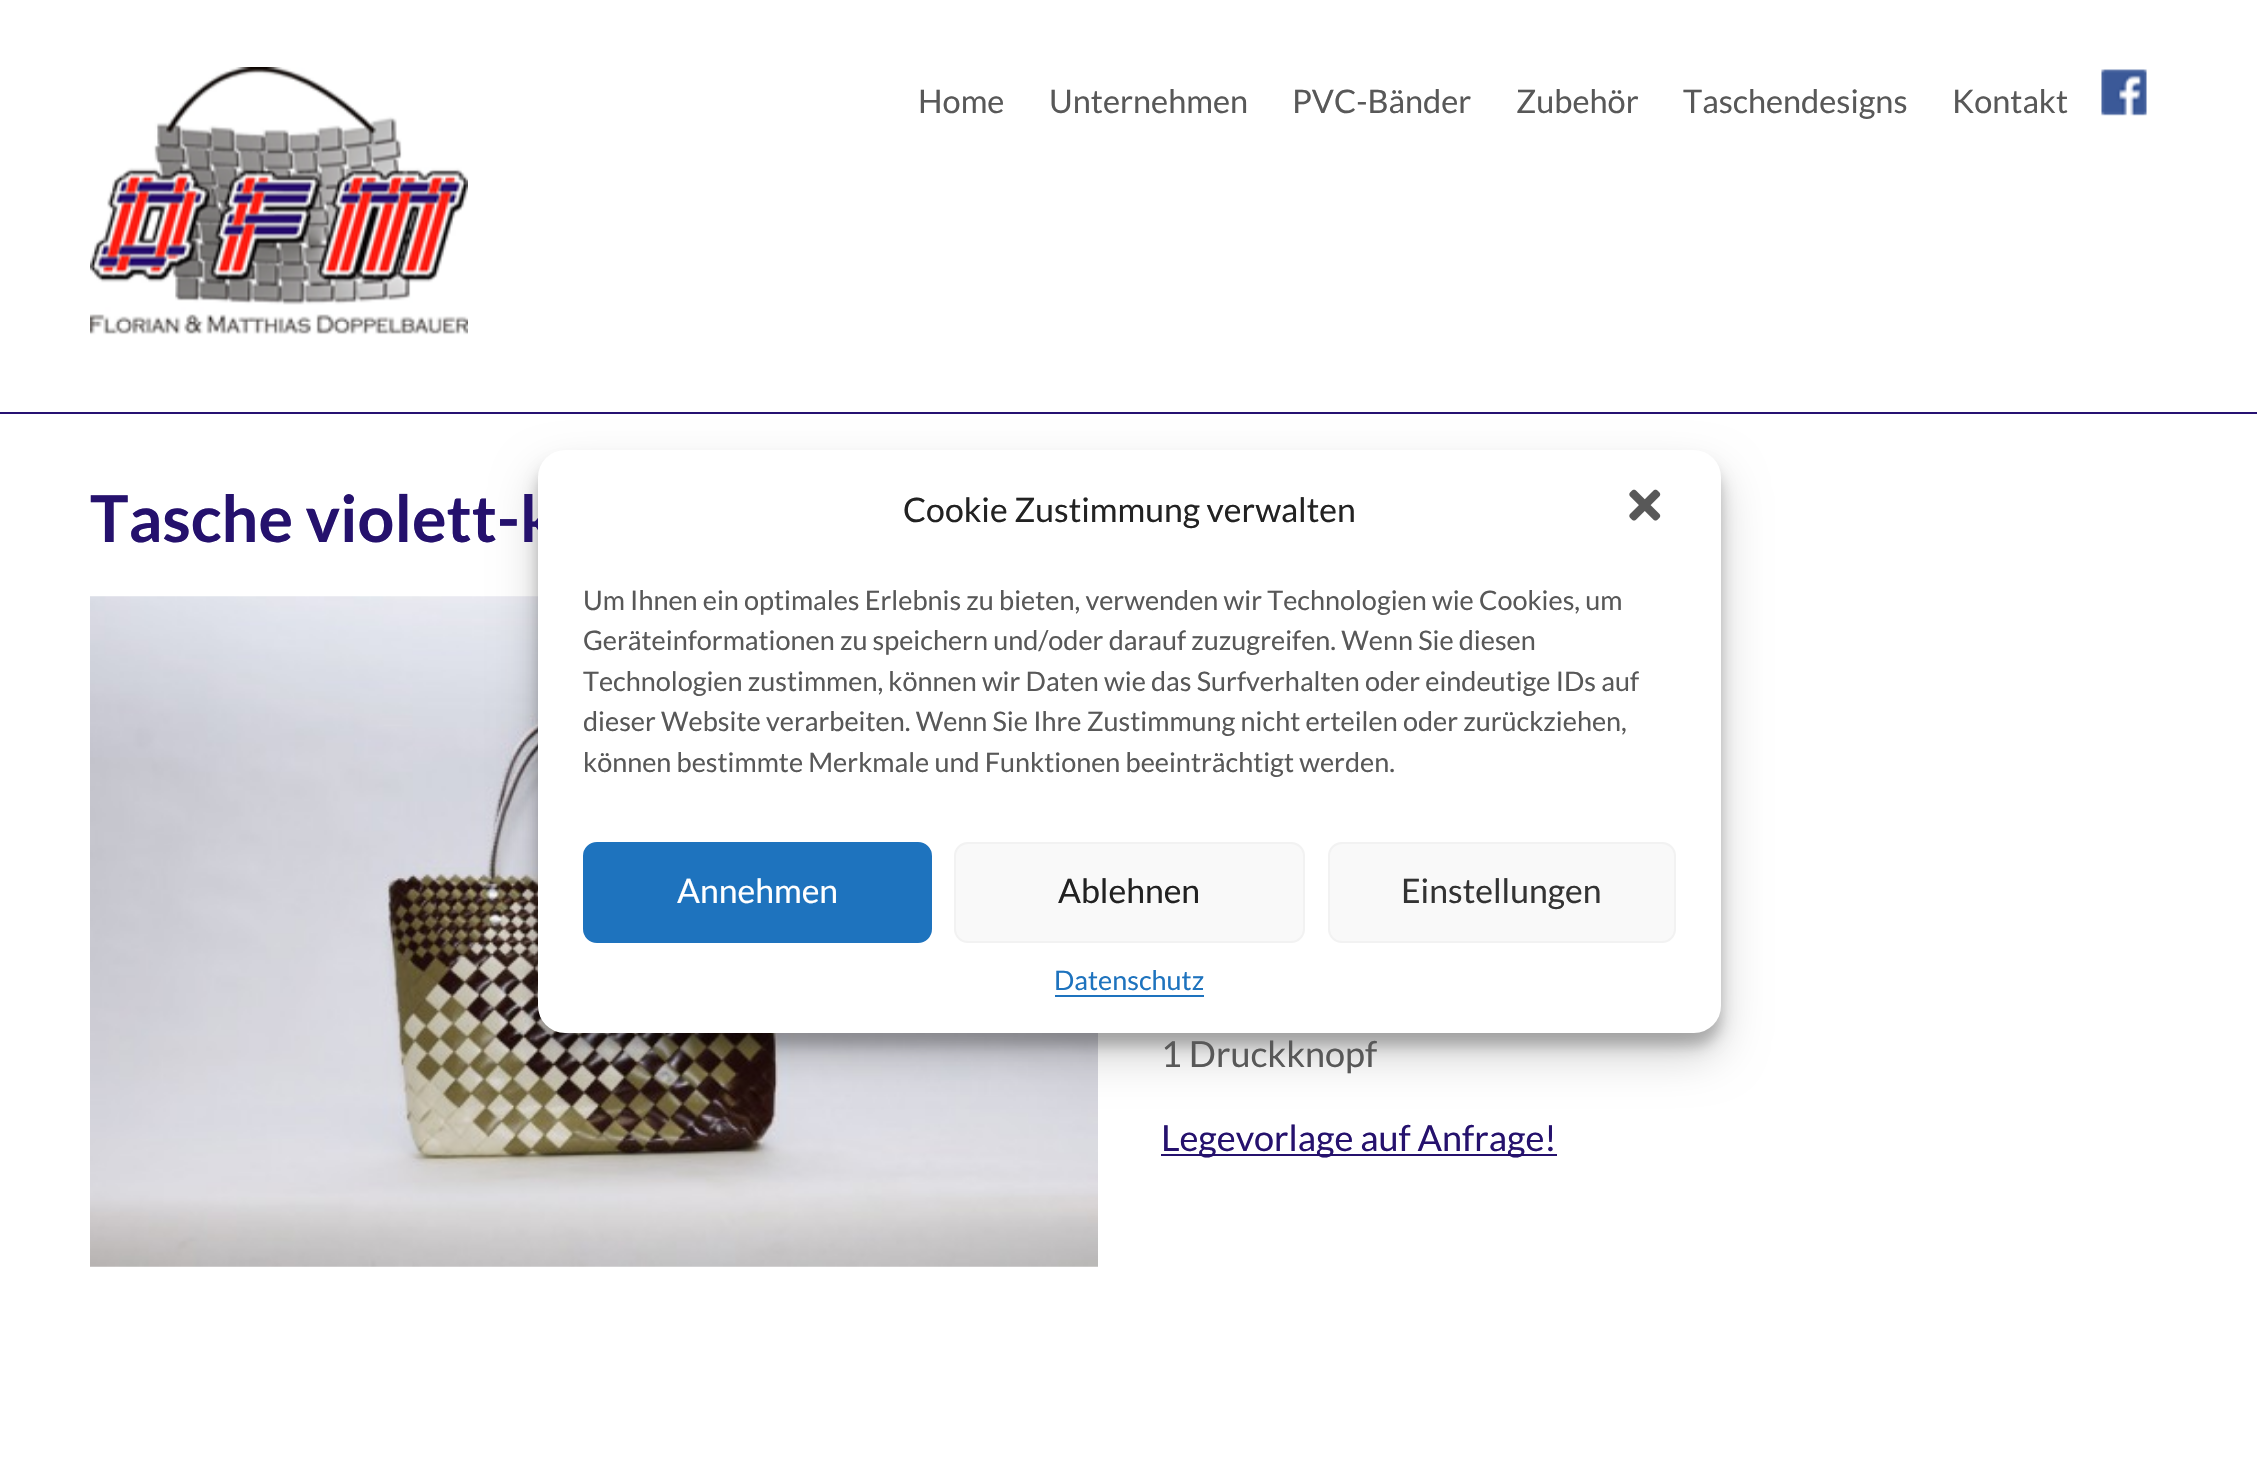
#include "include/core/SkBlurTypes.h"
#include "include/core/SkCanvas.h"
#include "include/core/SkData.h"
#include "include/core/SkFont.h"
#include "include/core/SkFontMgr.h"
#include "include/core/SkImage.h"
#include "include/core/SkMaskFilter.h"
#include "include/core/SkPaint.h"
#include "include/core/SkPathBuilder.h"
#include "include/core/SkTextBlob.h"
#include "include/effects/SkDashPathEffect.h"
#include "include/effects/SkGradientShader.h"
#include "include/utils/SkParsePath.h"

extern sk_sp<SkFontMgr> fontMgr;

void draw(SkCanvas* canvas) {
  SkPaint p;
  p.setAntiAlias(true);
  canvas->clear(SK_ColorWHITE);
  p.setColor(SkColorSetRGB(38, 17, 114));
  canvas->drawRect(SkRect::MakeLTRB(0, 412, 2257, 414), p);
  canvas->drawImageRect(SkImages::DeferredFromEncodedData(SkData::MakeFromFileName("images/1.png")), SkRect::MakeLTRB(90, 67, 468, 335), SkSamplingOptions());
  canvas->drawImageRect(SkImages::DeferredFromEncodedData(SkData::MakeFromFileName("images/2.png")), SkRect::MakeLTRB(2101, 69, 2147, 116), SkSamplingOptions());
  canvas->drawImageRect(SkImages::DeferredFromEncodedData(SkData::MakeFromFileName("images/3.png")), SkRect::MakeLTRB(90, 596, 1098, 1267), SkSamplingOptions());
  p.setColor(SkColorSetRGB(37, 17, 109));
  canvas->drawRect(SkRect::MakeLTRB(1161, 1154, 1557, 1156), p);
  p.setColor(SkColorSetARGB(59, 0, 0, 0));
  p.setMaskFilter(SkMaskFilter::MakeBlur(kNormal_SkBlurStyle, 7));
  canvas->drawRoundRect(SkRect::MakeLTRB(538, 464, 1721, 1046), 27, 27, p);
  p.setMaskFilter(nullptr);
  p.setColor(SkColorSetARGB(48, 0, 0, 0));
  p.setMaskFilter(SkMaskFilter::MakeBlur(kNormal_SkBlurStyle, 22.5f));
  canvas->drawRoundRect(SkRect::MakeLTRB(538, 473, 1721, 1055), 27, 27, p);
  p.setMaskFilter(nullptr);
  SkFont font1(fontMgr->matchFamilyStyle("Lato", SkFontStyle::Normal()), 32.5f);
  font1.setSubpixel(true);
  p.setColor(SkColorSetRGB(88, 88, 88));
  canvas->drawString("Home", 918, 113, font1, p);
  canvas->drawString("Unternehmen", 1049, 113, font1, p);
  canvas->drawString("PVC-Bänder", 1292, 113, font1, p);
  canvas->drawString("Zubehör", 1516, 113, font1, p);
  canvas->drawString("Taschendesigns", 1683, 113, font1, p);
  canvas->drawString("Kontakt", 1952, 113, font1, p);
  SkFont font2(fontMgr->matchFamilyStyle("Lato", SkFontStyle::Bold()), 64.75f);
  font2.setSubpixel(true);
  p.setColor(SkColorSetRGB(37, 17, 109));
  canvas->drawString("Tasche violett-k", 90, 542, font2, p);
  SkFont font3(fontMgr->matchFamilyStyle("Lato", SkFontStyle::Normal()), 36);
  font3.setSubpixel(true);
  p.setColor(SkColorSetRGB(88, 88, 88));
  canvas->drawString("1 Druckknopf", 1161, 1067, font3, p);
  p.setColor(SkColorSetRGB(37, 17, 109));
  canvas->drawString("Legevorlage auf Anfrage!", 1161, 1151, font3, p);
  p.setColor(SK_ColorWHITE);
  canvas->drawRoundRect(SkRect::MakeLTRB(538, 450, 1721, 1033), 27, 27, p);
  SkFont font4(fontMgr->matchFamilyStyle("Lato", SkFontStyle::Normal()), 33.75f);
  font4.setSubpixel(true);
  p.setColor(SkColorSetRGB(34, 34, 34));
  canvas->drawString("Cookie Zustimmung verwalten", 903, 522, font4, p);
  canvas->drawImageRect(SkImages::DeferredFromEncodedData(SkData::MakeFromFileName("images/4.png")), SkRect::MakeLTRB(1629, 489, 1661, 521), SkSamplingOptions());
  SkFont font5(fontMgr->matchFamilyStyle("Lato", SkFontStyle::Normal()), 27);
  font5.setSubpixel(true);
  p.setColor(SkColorSetRGB(88, 88, 88));
  canvas->drawString("Um Ihnen ein optimales Erlebnis zu bieten, verwenden wir Technologien wie Cookies, um", 583, 610, font5, p);
  canvas->drawString("Geräteinformationen zu speichern und/oder darauf zuzugreifen. Wenn Sie diesen", 583, 650, font5, p);
  canvas->drawString("Technologien zustimmen, können wir Daten wie das Surfverhalten oder eindeutige IDs auf", 583, 691, font5, p);
  canvas->drawString("dieser Website verarbeiten. Wenn Sie Ihre Zustimmung nicht erteilen oder zurückziehen,", 583, 731, font5, p);
  canvas->drawString("können bestimmte Merkmale und Funktionen beeinträchtigt werden.", 583, 772, font5, p);
  p.setColor(SkColorSetRGB(30, 115, 190));
  canvas->drawRoundRect(SkRect::MakeLTRB(584, 843, 931, 942), 13, 13, p);
  p.setStyle(SkPaint::kStroke_Style);
  p.setStrokeWidth(2);
  canvas->drawRoundRect(SkRect::MakeLTRB(584, 843, 931, 942), 13, 13, p);
  p.setStyle(SkPaint::kFill_Style);
  p.setColor(SK_ColorWHITE);
  canvas->drawString("Annehmen", 677, 903, font4, p);
  p.setColor(SkColorSetRGB(249, 249, 249));
  canvas->drawRoundRect(SkRect::MakeLTRB(955, 843, 1304, 942), 13, 13, p);
  p.setStyle(SkPaint::kStroke_Style);
  p.setColor(SkColorSetRGB(242, 242, 242));
  canvas->drawRoundRect(SkRect::MakeLTRB(955, 843, 1304, 942), 13, 13, p);
  p.setStyle(SkPaint::kFill_Style);
  p.setColor(SkColorSetRGB(34, 34, 34));
  canvas->drawString("Ablehnen", 1058, 903, font4, p);
  p.setColor(SkColorSetRGB(249, 249, 249));
  canvas->drawRoundRect(SkRect::MakeLTRB(1329, 843, 1675, 942), 13, 13, p);
  p.setStyle(SkPaint::kStroke_Style);
  p.setColor(SkColorSetRGB(242, 242, 242));
  canvas->drawRoundRect(SkRect::MakeLTRB(1329, 843, 1675, 942), 13, 13, p);
  p.setStyle(SkPaint::kFill_Style);
  p.setColor(SkColorSetRGB(51, 51, 51));
  canvas->drawString("Einstellungen", 1401, 903, font4, p);
  p.setColor(SkColorSetRGB(30, 115, 190));
  canvas->drawString("Datenschutz", 1054, 990, font5, p);
  canvas->drawRect(SkRect::MakeLTRB(1055, 995, 1204, 997), p);
}
